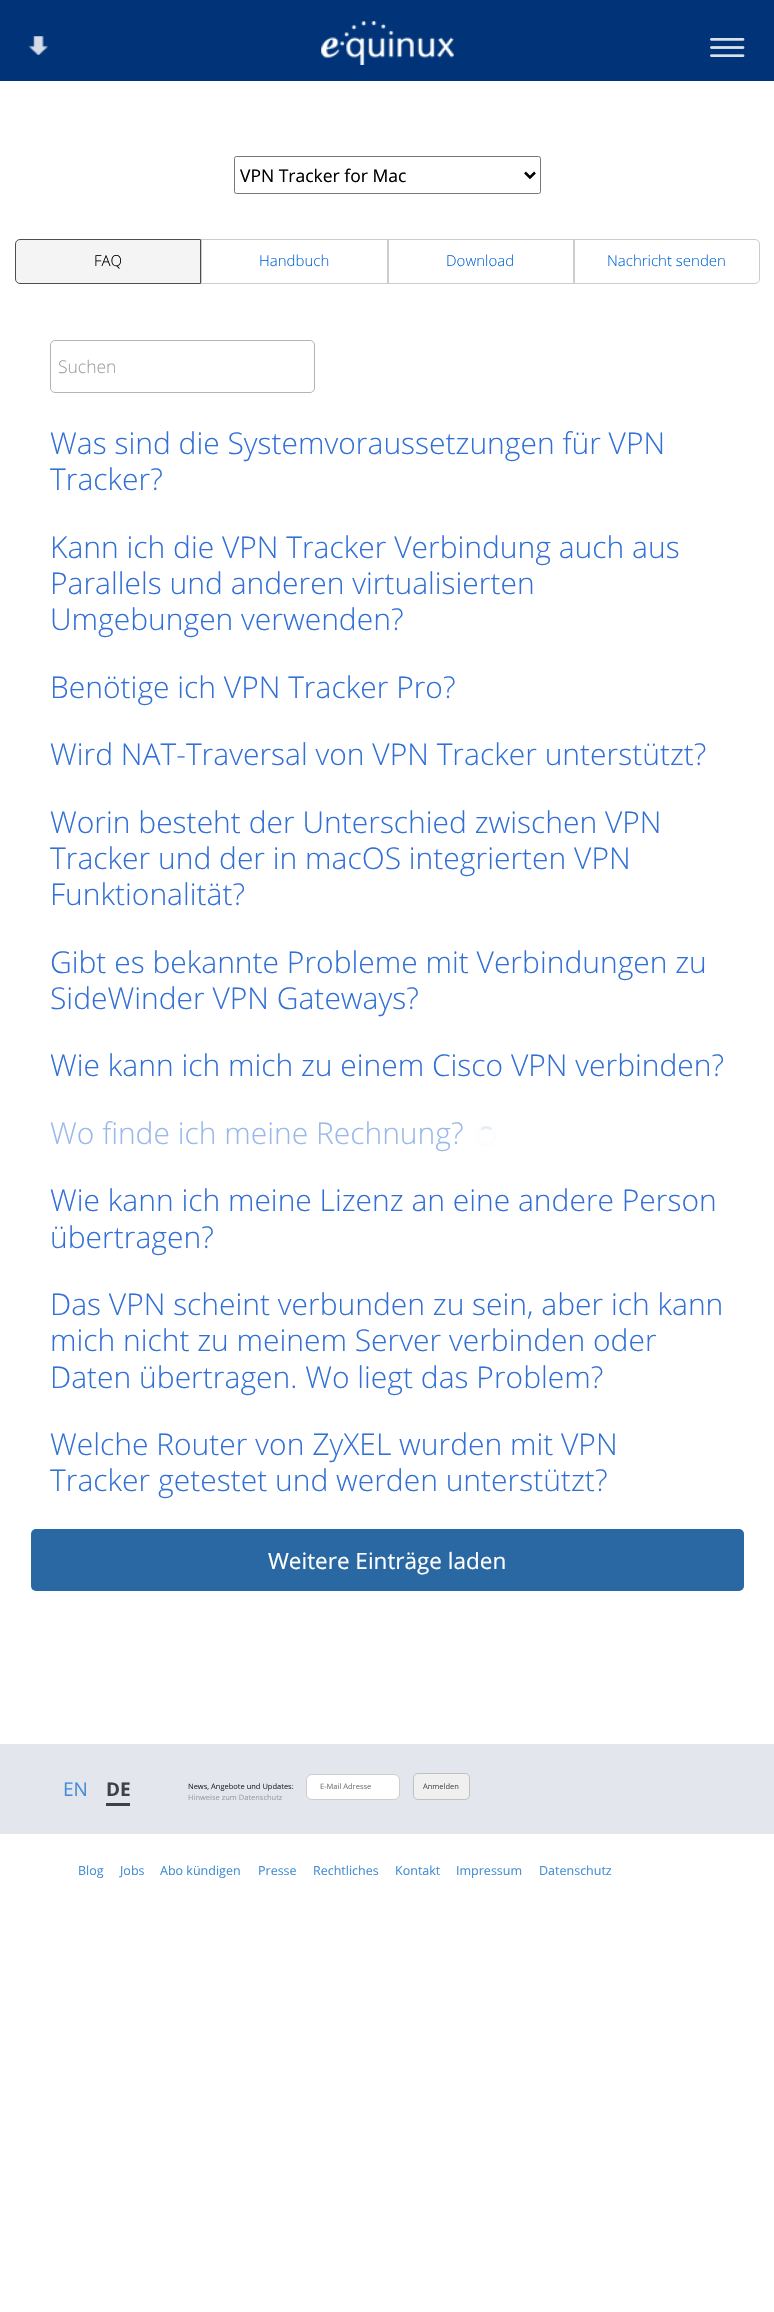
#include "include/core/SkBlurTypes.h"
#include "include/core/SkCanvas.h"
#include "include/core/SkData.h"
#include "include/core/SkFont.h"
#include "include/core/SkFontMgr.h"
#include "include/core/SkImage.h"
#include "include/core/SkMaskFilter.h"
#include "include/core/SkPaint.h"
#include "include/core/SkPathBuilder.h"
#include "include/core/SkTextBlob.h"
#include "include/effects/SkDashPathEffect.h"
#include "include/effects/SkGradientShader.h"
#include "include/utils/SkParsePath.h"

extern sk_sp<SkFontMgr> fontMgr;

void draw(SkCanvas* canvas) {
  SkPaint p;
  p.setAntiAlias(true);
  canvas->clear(SK_ColorWHITE);
  p.setColor(SkColorSetRGB(0, 51, 120));
  canvas->drawRect(SkRect::MakeLTRB(0, 0, 774, 81), p);
  canvas->drawImageRect(SkImages::DeferredFromEncodedData(SkData::MakeFromFileName("images/1.png")), SkRect::MakeLTRB(28, 36, 48, 55), SkSamplingOptions());
  canvas->drawImageRect(SkImages::DeferredFromEncodedData(SkData::MakeFromFileName("images/2.png")), SkRect::MakeLTRB(321, 21, 454, 65), SkSamplingOptions());
  canvas->drawImageRect(SkImages::DeferredFromEncodedData(SkData::MakeFromFileName("images/3.png")), SkRect::MakeLTRB(710, 38, 745, 57), SkSamplingOptions());
  p.setStyle(SkPaint::kStroke_Style);
  p.setStrokeWidth(1);
  p.setColor(SkColorSetRGB(118, 118, 118));
  canvas->drawRoundRect(SkRect::MakeLTRB(234.5f, 156.5f, 540.5f, 193.5f), 2, 2, p);
  p.setStrokeWidth(2.5f);
  p.setColor(SK_ColorBLACK);
  canvas->drawPath(SkPathBuilder().moveTo(525, 172.5f).lineTo(530, 177.5f).lineTo(535, 172.5f).detach(), p);
  p.setStyle(SkPaint::kFill_Style);
  p.setColor(SkColorSetRGB(244, 244, 244));
  canvas->drawPath(SkPathBuilder().moveTo(20, 239.5f).lineTo(200.5f, 239.5f).lineTo(200.5f, 283.5f).lineTo(20, 283.5f).cubicTo(17.5f, 283.5f, 15.5f, 281.5f, 15.5f, 279).lineTo(15.5f, 244).cubicTo(15.5f, 241.5f, 17.5f, 239.5f, 20, 239.5f).close().detach(), p);
  p.setStyle(SkPaint::kStroke_Style);
  p.setStrokeWidth(1);
  p.setColor(SkColorSetRGB(77, 77, 77));
  canvas->drawPath(SkPathBuilder().moveTo(20, 239.5f).lineTo(200.5f, 239.5f).lineTo(200.5f, 283.5f).lineTo(20, 283.5f).cubicTo(17.5f, 283.5f, 15.5f, 281.5f, 15.5f, 279).lineTo(15.5f, 244).cubicTo(15.5f, 241.5f, 17.5f, 239.5f, 20, 239.5f).close().detach(), p);
  p.setColor(SkColorSetRGB(204, 204, 204));
  canvas->drawRect(SkRect::MakeLTRB(201.5f, 239.5f, 387.5f, 283.5f), p);
  canvas->drawRect(SkRect::MakeLTRB(388.5f, 239.5f, 573.5f, 283.5f), p);
  canvas->drawPath(SkPathBuilder().moveTo(574.5f, 239.5f).lineTo(755, 239.5f).cubicTo(757.5f, 239.5f, 759.5f, 241.5f, 759.5f, 244).lineTo(759.5f, 279).cubicTo(759.5f, 281.5f, 757.5f, 283.5f, 755, 283.5f).lineTo(574.5f, 283.5f).close().detach(), p);
  p.setColor(SkColorSetRGB(180, 180, 180));
  canvas->drawRoundRect(SkRect::MakeLTRB(50.5f, 340.5f, 314.5f, 392.5f), 4.5f, 4.5f, p);
  canvas->drawImageRect(SkImages::DeferredFromEncodedData(SkData::MakeFromFileName("images/4.png")), SkRect::MakeLTRB(476, 1126, 496, 1146), SkSamplingOptions());
  p.setStyle(SkPaint::kFill_Style);
  p.setColor(SkColorSetRGB(41, 104, 162));
  canvas->drawRoundRect(SkRect::MakeLTRB(31, 1529, 744, 1591), 5, 5, p);
  p.setColor(SkColorSetRGB(227, 230, 236));
  canvas->drawRect(SkRect::MakeLTRB(0, 1744, 774, 1834), p);
  p.setColor(SkColorSetRGB(62, 66, 70));
  canvas->drawRect(SkRect::MakeLTRB(106, 1803, 130, 1806), p);
  p.setColor(SK_ColorWHITE);
  canvas->drawRoundRect(SkRect::MakeLTRB(306.5f, 1774.5f, 399.5f, 1799.5f), 5.5f, 5.5f, p);
  p.setStyle(SkPaint::kStroke_Style);
  p.setColor(SkColorSetRGB(206, 206, 206));
  canvas->drawRoundRect(SkRect::MakeLTRB(306.5f, 1774.5f, 399.5f, 1799.5f), 5.5f, 5.5f, p);
  p.setStyle(SkPaint::kFill_Style);
  p.setColor(SkColorSetRGB(240, 240, 240));
  canvas->drawRoundRect(SkRect::MakeLTRB(413.5f, 1773.5f, 469.5f, 1799.5f), 4.5f, 4.5f, p);
  p.setStyle(SkPaint::kStroke_Style);
  p.setColor(SkColorSetRGB(192, 192, 192));
  canvas->drawRoundRect(SkRect::MakeLTRB(413.5f, 1773.5f, 469.5f, 1799.5f), 4.5f, 4.5f, p);
  SkFont font1(fontMgr->matchFamilyStyle("Open Sans", SkFontStyle::Normal()), 17.5f);
  font1.setSubpixel(true);
  p.setStyle(SkPaint::kFill_Style);
  p.setColor(SK_ColorBLACK);
  canvas->drawString("VPN Tracker for Mac", 240, 182, font1, p);
  SkFont font2(fontMgr->matchFamilyStyle("Open Sans", SkFontStyle(300, SkFontStyle::kNormal_Width, SkFontStyle::kUpright_Slant)), 15);
  font2.setSubpixel(true);
  canvas->drawString("FAQ", 94, 266, font2, p);
  p.setColor(SkColorSetRGB(4, 101, 214));
  canvas->drawString("Handbuch", 259, 266, font2, p);
  canvas->drawString("Download", 446, 266, font2, p);
  canvas->drawString("Nachricht senden", 607, 266, font2, p);
  SkFont font3(fontMgr->matchFamilyStyle("Open Sans", SkFontStyle(300, SkFontStyle::kNormal_Width, SkFontStyle::kUpright_Slant)), 17.5f);
  font3.setSubpixel(true);
  p.setColor(SkColorSetRGB(160, 160, 160));
  canvas->drawString("Suchen", 58, 373, font3, p);
  SkFont font4(fontMgr->matchFamilyStyle("Open Sans", SkFontStyle(300, SkFontStyle::kNormal_Width, SkFontStyle::kUpright_Slant)), 30);
  font4.setSubpixel(true);
  p.setColor(SkColorSetRGB(50, 112, 214));
  canvas->drawString("Was sind die Systemvoraussetzungen für VPN", 50, 454, font4, p);
  canvas->drawString("Tracker?", 50, 490, font4, p);
  canvas->drawString("Kann ich die VPN Tracker Verbindung auch aus", 50, 558, font4, p);
  canvas->drawString("Parallels und anderen virtualisierten", 50, 594, font4, p);
  canvas->drawString("Umgebungen verwenden?", 50, 630, font4, p);
  canvas->drawString("Benötige ich VPN Tracker Pro?", 50, 698, font4, p);
  canvas->drawString("Wird NAT-Traversal von VPN Tracker unterstützt?", 50, 765, font4, p);
  canvas->drawString("Worin besteht der Unterschied zwischen VPN", 50, 833, font4, p);
  canvas->drawString("Tracker und der in macOS integrierten VPN", 50, 869, font4, p);
  canvas->drawString("Funktionalität?", 50, 905, font4, p);
  canvas->drawString("Gibt es bekannte Probleme mit Verbindungen zu", 50, 973, font4, p);
  canvas->drawString("SideWinder VPN Gateways?", 50, 1009, font4, p);
  canvas->drawString("Wie kann ich mich zu einem Cisco VPN verbinden?", 50, 1076, font4, p);
  p.setColor(SkColorSetRGB(153, 184, 235));
  canvas->drawString("Wo finde ich meine Rechnung?", 50, 1144, font4, p);
  p.setColor(SkColorSetRGB(50, 112, 214));
  canvas->drawString("Wie kann ich meine Lizenz an eine andere Person", 50, 1211, font4, p);
  canvas->drawString("übertragen?", 50, 1248, font4, p);
  canvas->drawString("Das VPN scheint verbunden zu sein, aber ich kann", 50, 1315, font4, p);
  canvas->drawString("mich nicht zu meinem Server verbinden oder", 50, 1351, font4, p);
  canvas->drawString("Daten übertragen. Wo liegt das Problem?", 50, 1388, font4, p);
  canvas->drawString("Welche Router von ZyXEL wurden mit VPN", 50, 1455, font4, p);
  canvas->drawString("Tracker getestet und werden unterstützt?", 50, 1491, font4, p);
  SkFont font5(fontMgr->matchFamilyStyle("Open Sans", SkFontStyle::Normal()), 22.5f);
  font5.setSubpixel(true);
  p.setColor(SK_ColorWHITE);
  canvas->drawString("Weitere Einträge laden", 268, 1569, font5, p);
  SkFont font6(fontMgr->matchFamilyStyle("Open Sans", SkFontStyle::Normal()), 19);
  font6.setSubpixel(true);
  p.setColor(SkColorSetRGB(66, 141, 212));
  canvas->drawString("EN", 63, 1796, font6, p);
  SkFont font7(fontMgr->matchFamilyStyle("Open Sans", SkFontStyle::Bold()), 19);
  font7.setSubpixel(true);
  p.setColor(SkColorSetRGB(62, 66, 70));
  canvas->drawString("DE", 106, 1796, font7, p);
  SkFont font8(fontMgr->matchFamilyStyle("Open Sans", SkFontStyle::Normal()), 7.5f);
  font8.setSubpixel(true);
  p.setColor(SkColorSetRGB(42, 42, 42));
  canvas->drawString("News, Angebote und Updates:", 188, 1789, font8, p);
  p.setColor(SkColorSetRGB(160, 160, 160));
  canvas->drawString("Hinweise zum Datenschutz", 188, 1800, font8, p);
  p.setColor(SkColorSetRGB(117, 117, 117));
  canvas->drawString("E-Mail Adresse", 320, 1789, font8, p);
  p.setColor(SkColorSetRGB(80, 80, 80));
  canvas->drawString("Anmelden", 423, 1789, font8, p);
  SkFont font9(fontMgr->matchFamilyStyle("Open Sans", SkFontStyle::Normal()), 12.5f);
  font9.setSubpixel(true);
  p.setColor(SkColorSetRGB(66, 141, 212));
  canvas->drawString("Blog", 78, 1875, font9, p);
  canvas->drawString("Jobs", 120, 1875, font9, p);
  canvas->drawString("Abo kündigen", 160, 1875, font9, p);
  canvas->drawString("Presse", 258, 1875, font9, p);
  canvas->drawString("Rechtliches", 313, 1875, font9, p);
  canvas->drawString("Kontakt", 395, 1875, font9, p);
  canvas->drawString("Impressum", 456, 1875, font9, p);
  canvas->drawString("Datenschutz", 539, 1875, font9, p);
}
